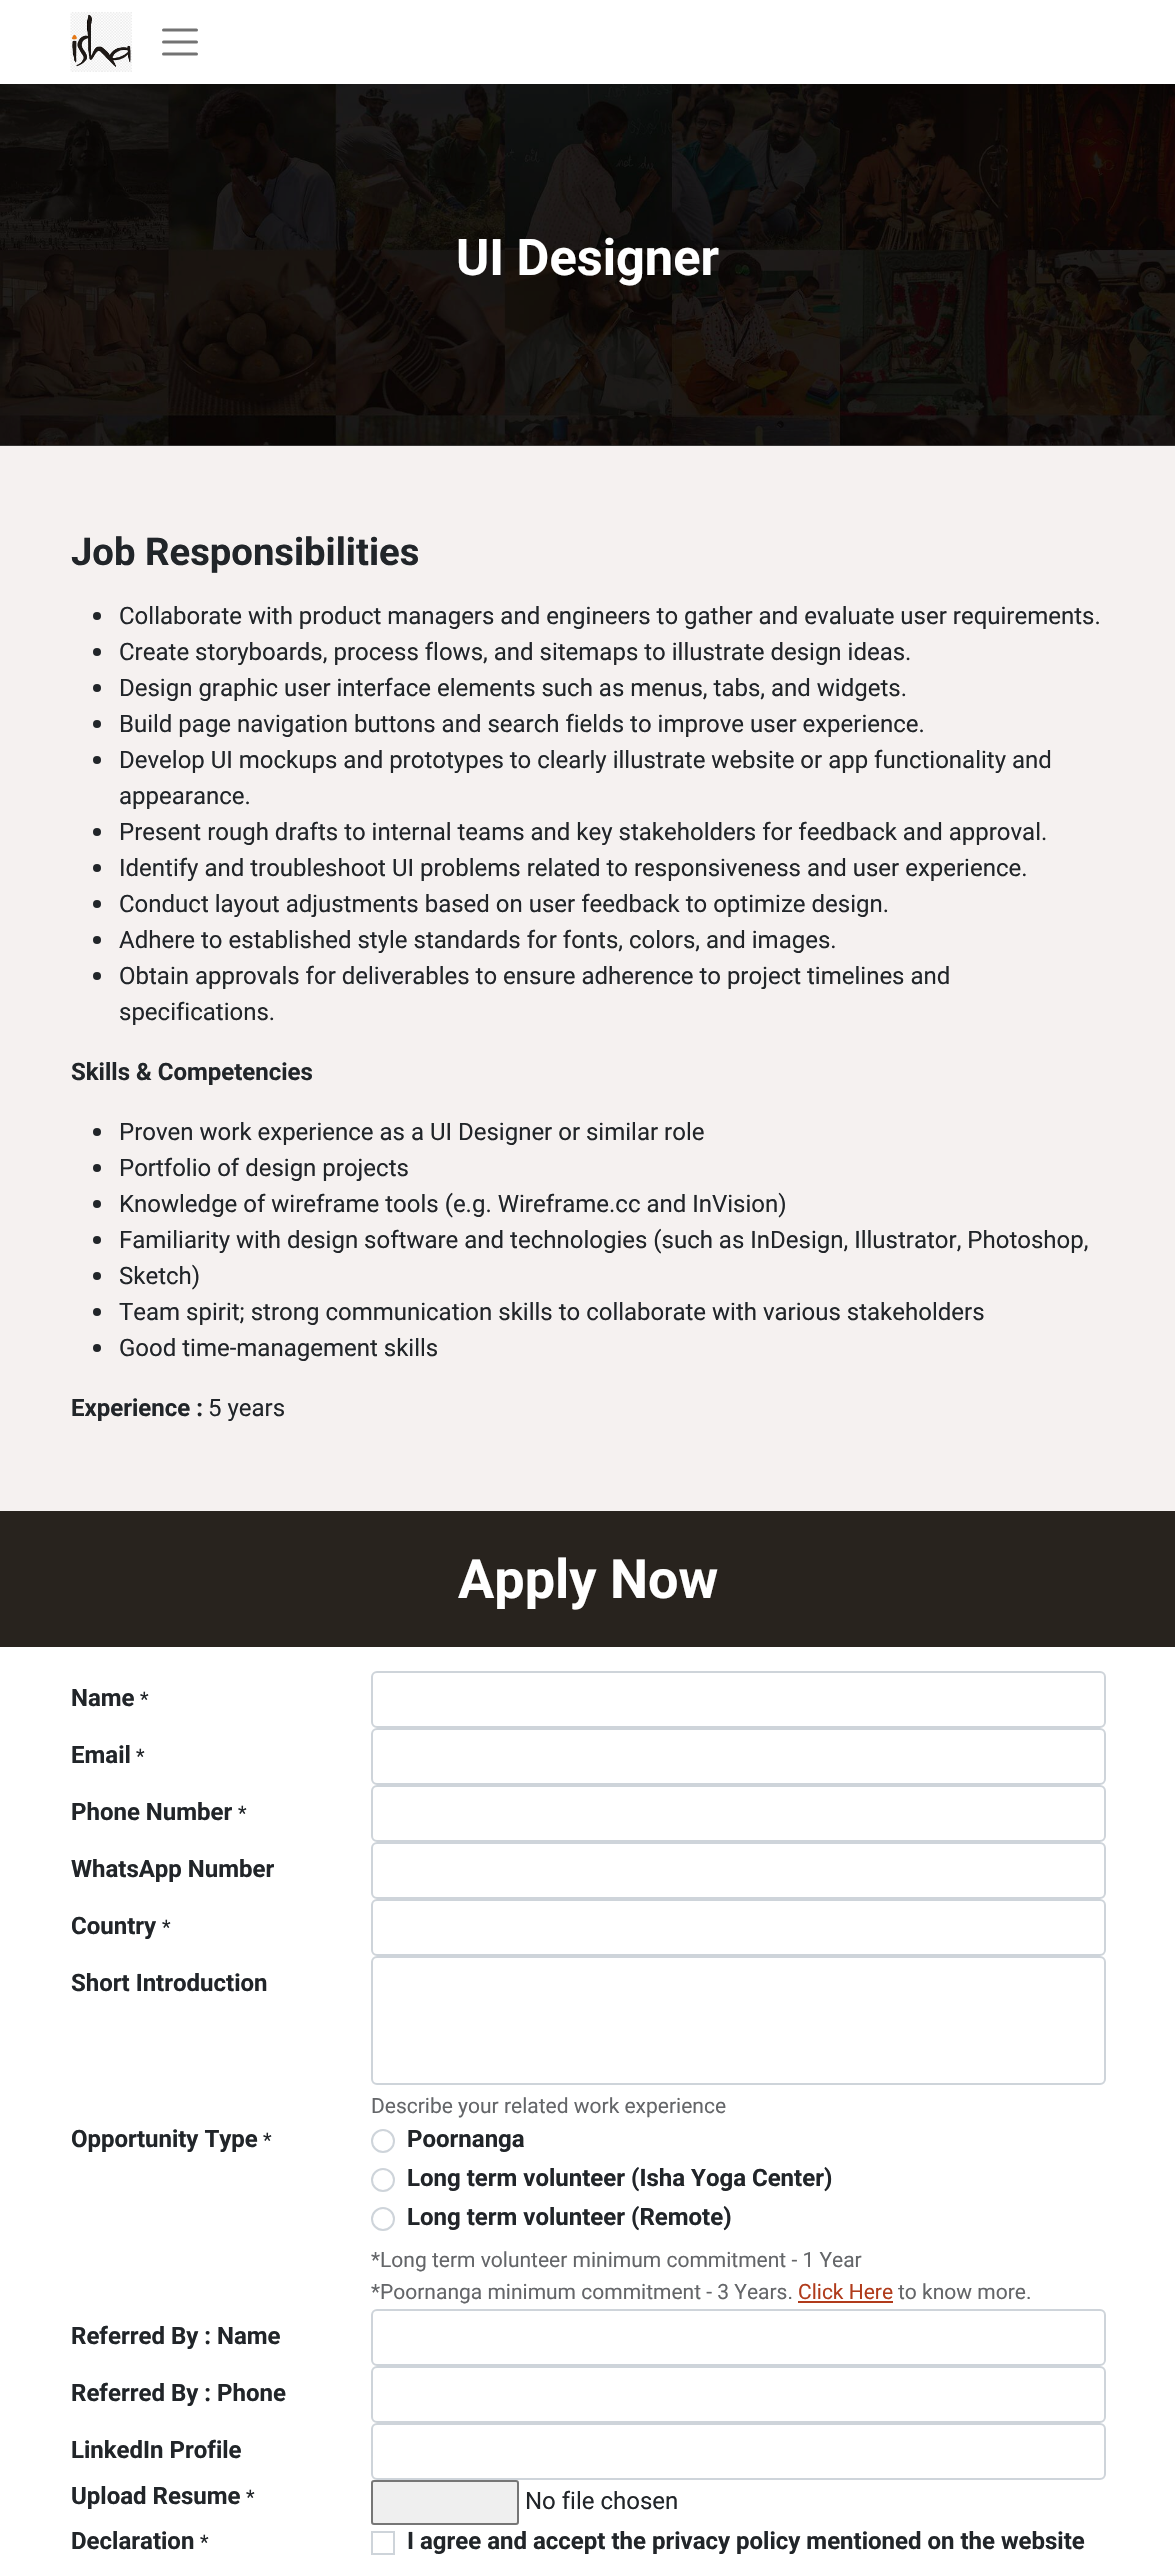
#include "include/core/SkBlurTypes.h"
#include "include/core/SkCanvas.h"
#include "include/core/SkData.h"
#include "include/core/SkFont.h"
#include "include/core/SkFontMgr.h"
#include "include/core/SkImage.h"
#include "include/core/SkMaskFilter.h"
#include "include/core/SkPaint.h"
#include "include/core/SkPathBuilder.h"
#include "include/core/SkTextBlob.h"
#include "include/effects/SkDashPathEffect.h"
#include "include/effects/SkGradientShader.h"
#include "include/utils/SkParsePath.h"

extern sk_sp<SkFontMgr> fontMgr;

void draw(SkCanvas* canvas) {
  SkPaint p;
  p.setAntiAlias(true);
  canvas->clear(SK_ColorWHITE);
  canvas->drawImageRect(SkImages::DeferredFromEncodedData(SkData::MakeFromFileName("images/1.png")), SkRect::MakeLTRB(70, 12, 132, 72), SkSamplingOptions());
  p.setStyle(SkPaint::kStroke_Style);
  p.setStrokeWidth(3);
  p.setStrokeCap(SkPaint::kRound_Cap);
  p.setColor(SkColorSetRGB(115, 115, 115));
  canvas->drawPath(SkPathBuilder().moveTo(163.5f, 30).lineTo(196.5f, 30).moveTo(163.5f, 42).lineTo(196.5f, 42).moveTo(163.5f, 54).lineTo(196.5f, 54).detach(), p);
  p.setStyle(SkPaint::kFill_Style);
  p.setColor(SkColorSetRGB(64, 64, 64));
  canvas->drawRect(SkRect::MakeLTRB(0, 445, 1175, 446), p);
  canvas->drawImageRect(SkImages::DeferredFromEncodedData(SkData::MakeFromFileName("images/2.png")), SkRect::MakeLTRB(0, 84, 1175, 446), SkSamplingOptions());
  p.setColor(SkColorSetRGB(245, 241, 240));
  canvas->drawRect(SkRect::MakeLTRB(0, 446, 1175, 1511), p);
  p.setColor(SkColorSetRGB(33, 37, 41));
  canvas->drawCircle(97, 616, 4, p);
  canvas->drawCircle(97, 652, 4, p);
  canvas->drawCircle(97, 688, 4, p);
  canvas->drawCircle(97, 724, 4, p);
  canvas->drawCircle(97, 760, 4, p);
  canvas->drawCircle(97, 832, 4, p);
  canvas->drawCircle(97, 868, 4, p);
  canvas->drawCircle(97, 904, 4, p);
  canvas->drawCircle(97, 940, 4, p);
  canvas->drawCircle(97, 976, 4, p);
  canvas->drawCircle(97, 1132, 4, p);
  canvas->drawCircle(97, 1168, 4, p);
  canvas->drawCircle(97, 1204, 4, p);
  canvas->drawCircle(97, 1240, 4, p);
  canvas->drawCircle(97, 1276, 4, p);
  canvas->drawCircle(97, 1312, 4, p);
  canvas->drawCircle(97, 1348, 4, p);
  p.setColor(SkColorSetRGB(40, 35, 30));
  canvas->drawRect(SkRect::MakeLTRB(0, 1511, 1175, 1647), p);
  p.setStyle(SkPaint::kStroke_Style);
  p.setStrokeWidth(2);
  p.setStrokeCap(SkPaint::kButt_Cap);
  p.setColor(SkColorSetRGB(206, 212, 218));
  canvas->drawRoundRect(SkRect::MakeLTRB(372, 1672, 1105, 1727), 5, 5, p);
  canvas->drawRoundRect(SkRect::MakeLTRB(372, 1729, 1105, 1784), 5, 5, p);
  canvas->drawRoundRect(SkRect::MakeLTRB(372, 1786, 1105, 1841), 5, 5, p);
  canvas->drawRoundRect(SkRect::MakeLTRB(372, 1843, 1105, 1898), 5, 5, p);
  canvas->drawRoundRect(SkRect::MakeLTRB(372, 1900, 1105, 1955), 5, 5, p);
  canvas->drawRoundRect(SkRect::MakeLTRB(372, 1957, 1105, 2084), 5, 5, p);
  canvas->drawCircle(383, 2141, 11, p);
  canvas->drawCircle(383, 2180, 11, p);
  canvas->drawCircle(383, 2219, 11, p);
  p.setStyle(SkPaint::kFill_Style);
  p.setColor(SkColorSetRGB(176, 59, 27));
  canvas->drawRect(SkRect::MakeLTRB(798, 2301, 893, 2303), p);
  p.setStyle(SkPaint::kStroke_Style);
  p.setColor(SkColorSetRGB(206, 212, 218));
  canvas->drawRoundRect(SkRect::MakeLTRB(372, 2310, 1105, 2365), 5, 5, p);
  canvas->drawRoundRect(SkRect::MakeLTRB(372, 2367, 1105, 2422), 5, 5, p);
  canvas->drawRoundRect(SkRect::MakeLTRB(372, 2424, 1105, 2479), 5, 5, p);
  p.setStyle(SkPaint::kFill_Style);
  p.setColor(SkColorSetRGB(239, 239, 239));
  canvas->drawRoundRect(SkRect::MakeLTRB(372, 2481, 518, 2524), 2, 2, p);
  p.setStyle(SkPaint::kStroke_Style);
  p.setColor(SkColorSetRGB(118, 118, 118));
  canvas->drawRoundRect(SkRect::MakeLTRB(372, 2481, 518, 2524), 2, 2, p);
  p.setColor(SkColorSetRGB(206, 212, 218));
  canvas->drawRect(SkRect::MakeLTRB(372, 2532, 394, 2554), p);
  SkFont font1(fontMgr->matchFamilyStyle("Roboto", SkFontStyle::Bold()), 50.5f);
  font1.setSubpixel(true);
  p.setStyle(SkPaint::kFill_Style);
  p.setColor(SK_ColorWHITE);
  canvas->drawString("UI Designer", 456, 275, font1, p);
  SkFont font2(fontMgr->matchFamilyStyle("Roboto", SkFontStyle::Bold()), 38.25f);
  font2.setSubpixel(true);
  p.setColor(SkColorSetRGB(33, 37, 41));
  canvas->drawString("Job Responsibilities", 71, 565, font2, p);
  SkFont font3(fontMgr->matchFamilyStyle("Roboto", SkFontStyle::Normal()), 24);
  font3.setSubpixel(true);
  canvas->drawString("Collaborate with product managers and engineers to gather and evaluate user requirements.", 119, 624, font3, p);
  canvas->drawString("Create storyboards, process flows, and sitemaps to illustrate design ideas.", 119, 660, font3, p);
  canvas->drawString("Design graphic user interface elements such as menus, tabs, and widgets.", 119, 696, font3, p);
  canvas->drawString("Build page navigation buttons and search fields to improve user experience.", 119, 732, font3, p);
  canvas->drawString("Develop UI mockups and prototypes to clearly illustrate website or app functionality and", 119, 768, font3, p);
  canvas->drawString("appearance.", 119, 804, font3, p);
  canvas->drawString("Present rough drafts to internal teams and key stakeholders for feedback and approval.", 119, 840, font3, p);
  canvas->drawString("Identify and troubleshoot UI problems related to responsiveness and user experience.", 119, 876, font3, p);
  canvas->drawString("Conduct layout adjustments based on user feedback to optimize design.", 119, 912, font3, p);
  canvas->drawString("Adhere to established style standards for fonts, colors, and images.", 119, 948, font3, p);
  canvas->drawString("Obtain approvals for deliverables to ensure adherence to project timelines and", 119, 984, font3, p);
  canvas->drawString("specifications.", 119, 1020, font3, p);
  SkFont font4(fontMgr->matchFamilyStyle("Roboto", SkFontStyle::Bold()), 24);
  font4.setSubpixel(true);
  canvas->drawString("Skills & Competencies", 71, 1080, font4, p);
  canvas->drawString("Proven work experience as a UI Designer or similar role", 119, 1140, font3, p);
  canvas->drawString("Portfolio of design projects", 119, 1176, font3, p);
  canvas->drawString("Knowledge of wireframe tools (e.g. Wireframe.cc and InVision)", 119, 1212, font3, p);
  canvas->drawString("Familiarity with design software and technologies (such as InDesign, Illustrator, Photoshop,", 119, 1248, font3, p);
  canvas->drawString("Sketch)", 119, 1284, font3, p);
  canvas->drawString("Team spirit; strong communication skills to collaborate with various stakeholders", 119, 1320, font3, p);
  canvas->drawString("Good time-management skills", 119, 1356, font3, p);
  canvas->drawString("Experience :", 71, 1416, font4, p);
  canvas->drawString("5 years", 208, 1416, font3, p);
  SkFont font5(fontMgr->matchFamilyStyle("Roboto", SkFontStyle::Bold()), 54);
  font5.setSubpixel(true);
  p.setColor(SK_ColorWHITE);
  canvas->drawString("Apply Now", 458, 1598, font5, p);
  p.setColor(SkColorSetRGB(33, 37, 41));
  canvas->drawString("Name", 71, 1706, font4, p);
  SkFont font6(fontMgr->matchFamilyStyle("Roboto", SkFontStyle::Normal()), 20);
  font6.setSubpixel(true);
  canvas->drawString("*", 140, 1706, font6, p);
  canvas->drawString("Email", 71, 1763, font4, p);
  canvas->drawString("*", 136, 1763, font6, p);
  canvas->drawString("Phone Number", 71, 1820, font4, p);
  canvas->drawString("*", 238, 1820, font6, p);
  canvas->drawString("WhatsApp Number", 71, 1877, font4, p);
  canvas->drawString("Country", 71, 1934, font4, p);
  canvas->drawString("*", 162, 1934, font6, p);
  canvas->drawString("Short Introduction", 71, 1991, font4, p);
  SkFont font7(fontMgr->matchFamilyStyle("Roboto", SkFontStyle::Normal()), 21);
  font7.setSubpixel(true);
  p.setColor(SkColorSetRGB(100, 102, 105));
  canvas->drawString("Describe your related work experience", 371, 2113, font7, p);
  p.setColor(SkColorSetRGB(33, 37, 41));
  canvas->drawString("Opportunity Type", 71, 2147, font4, p);
  canvas->drawString("*", 263, 2147, font6, p);
  canvas->drawString("Poornanga", 407, 2147, font4, p);
  canvas->drawString("Long term volunteer (Isha Yoga Center)", 407, 2186, font4, p);
  canvas->drawString("Long term volunteer (Remote)", 407, 2225, font4, p);
  p.setColor(SkColorSetRGB(100, 102, 105));
  canvas->drawString("*Long term volunteer minimum commitment - 1 Year", 371, 2267, font7, p);
  canvas->drawString("*Poornanga minimum commitment - 3 Years.", 371, 2299, font7, p);
  p.setColor(SkColorSetRGB(176, 59, 27));
  canvas->drawString("Click Here", 798, 2299, font7, p);
  p.setColor(SkColorSetRGB(100, 102, 105));
  canvas->drawString("to know more.", 898, 2299, font7, p);
  p.setColor(SkColorSetRGB(33, 37, 41));
  canvas->drawString("Referred By : Name", 71, 2344, font4, p);
  canvas->drawString("Referred By : Phone", 71, 2401, font4, p);
  canvas->drawString("LinkedIn Profile", 71, 2458, font4, p);
  canvas->drawString("Upload Resume", 71, 2504, font4, p);
  canvas->drawString("*", 246, 2504, font6, p);
  canvas->drawString("No file chosen", 525, 2509, font3, p);
  canvas->drawString("Declaration", 71, 2549, font4, p);
  canvas->drawString("*", 200, 2549, font6, p);
  canvas->drawString("I agree and accept the privacy policy mentioned on the website", 407, 2549, font4, p);
}
